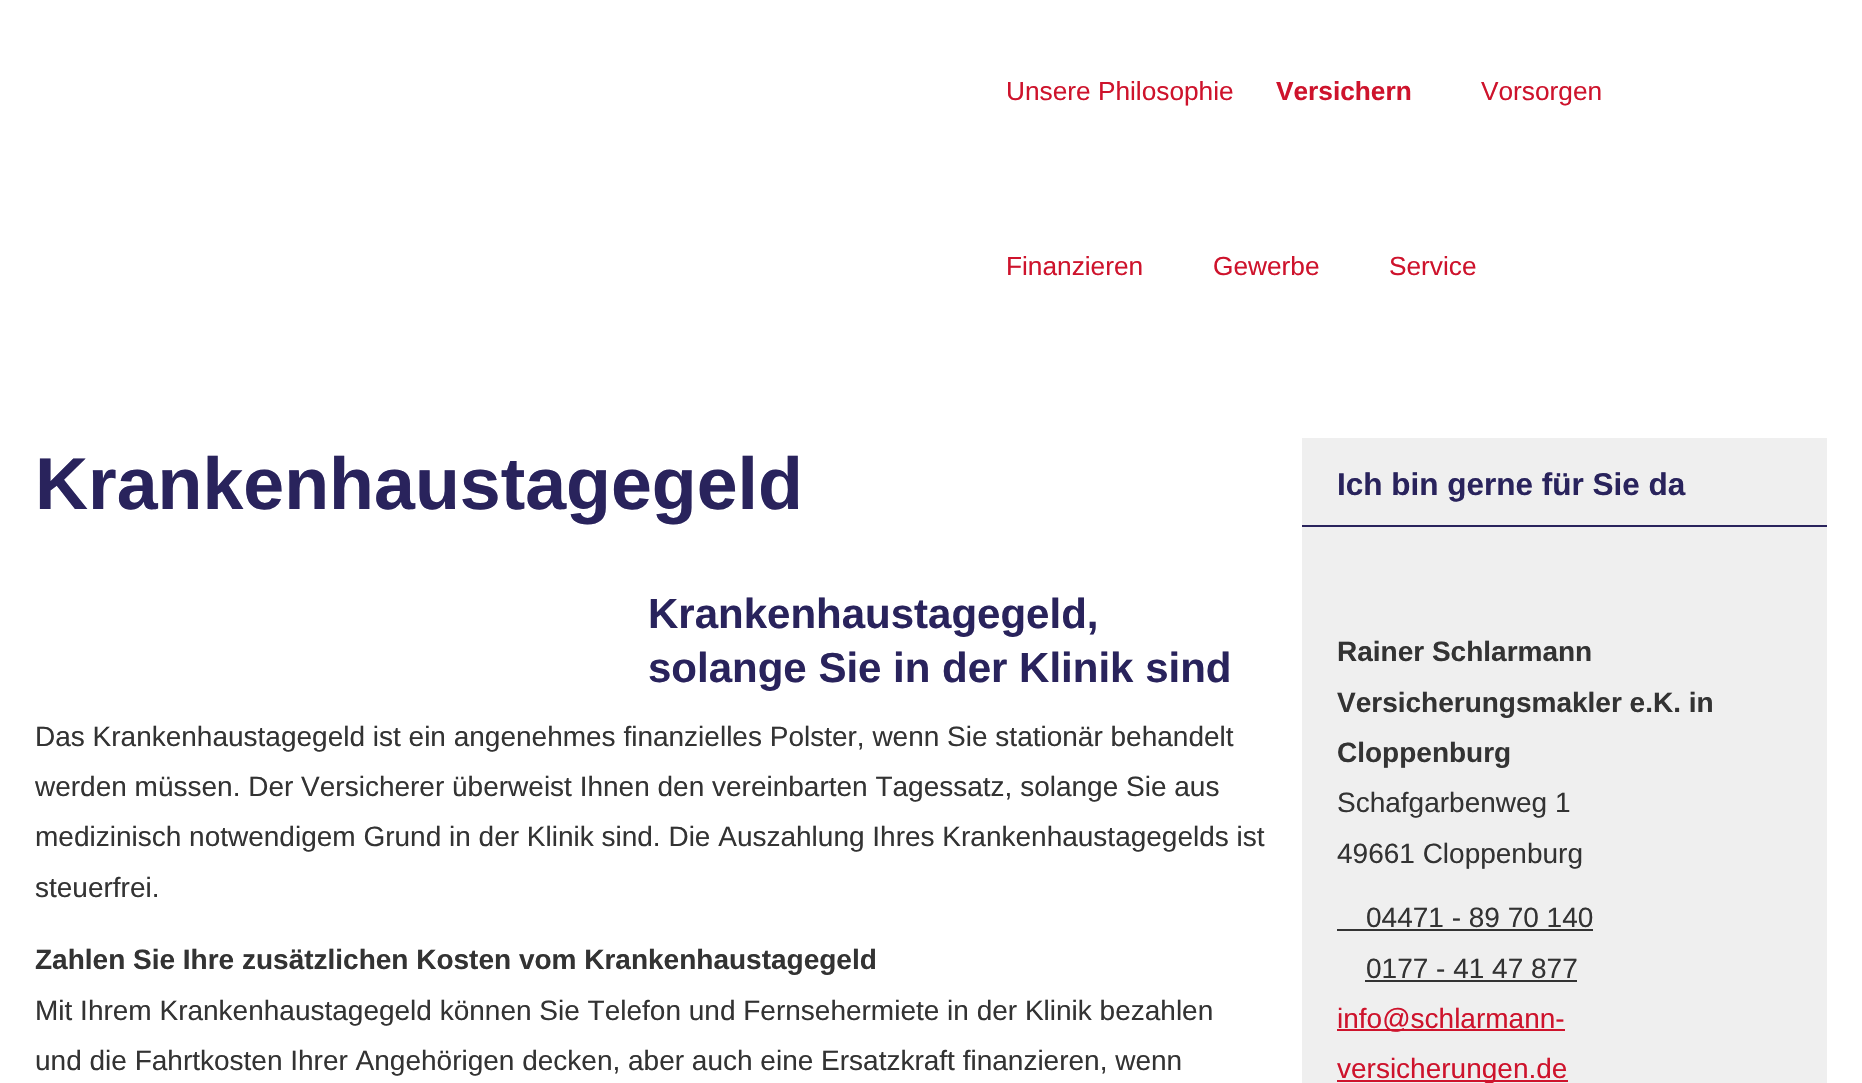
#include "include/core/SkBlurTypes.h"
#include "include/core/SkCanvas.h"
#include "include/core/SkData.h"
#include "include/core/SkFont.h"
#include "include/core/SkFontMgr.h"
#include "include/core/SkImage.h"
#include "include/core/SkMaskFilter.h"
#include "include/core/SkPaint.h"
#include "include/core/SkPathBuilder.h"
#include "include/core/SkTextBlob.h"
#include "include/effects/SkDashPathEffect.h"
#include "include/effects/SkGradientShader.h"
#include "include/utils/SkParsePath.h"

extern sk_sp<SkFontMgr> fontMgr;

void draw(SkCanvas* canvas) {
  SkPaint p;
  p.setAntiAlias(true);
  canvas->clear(SK_ColorWHITE);
  p.setColor(SkColorSetRGB(239, 239, 239));
  canvas->drawRect(SkRect::MakeLTRB(1302, 438, 1827, 1083), p);
  p.setColor(SkColorSetRGB(41, 35, 92));
  canvas->drawRect(SkRect::MakeLTRB(1302, 525, 1827, 527), p);
  p.setColor(SkColorSetRGB(51, 51, 51));
  canvas->drawRect(SkRect::MakeLTRB(1337, 929, 1593, 931), p);
  canvas->drawRect(SkRect::MakeLTRB(1365, 980, 1577, 982), p);
  p.setColor(SkColorSetRGB(206, 19, 44));
  canvas->drawRect(SkRect::MakeLTRB(1337, 1029, 1565, 1031), p);
  canvas->drawRect(SkRect::MakeLTRB(1337, 1080, 1568, 1082), p);
  SkFont font1(fontMgr->matchFamilyStyle("Liberation Sans", SkFontStyle::Normal()), 26.25f);
  font1.setSubpixel(true);
  canvas->drawString("Unsere Philosophie", 1006, 100, font1, p);
  SkFont font2(fontMgr->matchFamilyStyle("Liberation Sans", SkFontStyle::Bold()), 26.25f);
  font2.setSubpixel(true);
  canvas->drawString("Versichern", 1276, 100, font2, p);
  canvas->drawString("Vorsorgen", 1481, 100, font1, p);
  canvas->drawString("Finanzieren", 1006, 275, font1, p);
  canvas->drawString("Gewerbe", 1213, 275, font1, p);
  canvas->drawString("Service", 1389, 275, font1, p);
  SkFont font3(fontMgr->matchFamilyStyle("Liberation Sans", SkFontStyle::Bold()), 73.5f);
  font3.setSubpixel(true);
  p.setColor(SkColorSetRGB(41, 35, 92));
  canvas->drawString("Krankenhaustagegeld", 35, 509, font3, p);
  SkFont font4(fontMgr->matchFamilyStyle("Liberation Sans", SkFontStyle::Bold()), 42);
  font4.setSubpixel(true);
  canvas->drawString("Krankenhaustagegeld,", 648, 628, font4, p);
  canvas->drawString("solange Sie in der Klinik sind", 648, 682, font4, p);
  SkFont font5(fontMgr->matchFamilyStyle("Liberation Sans", SkFontStyle::Normal()), 28);
  font5.setSubpixel(true);
  p.setColor(SkColorSetRGB(51, 51, 51));
  canvas->drawString("Das Krankenhaustagegeld ist ein angenehmes finanzielles Polster, wenn Sie stationär behandelt", 35, 746, font5, p);
  canvas->drawString("werden müssen. Der Versicherer überweist Ihnen den vereinbarten Tagessatz, solange Sie aus", 35, 796, font5, p);
  canvas->drawString("medizinisch notwendigem Grund in der Klinik sind. Die Auszahlung Ihres Krankenhaustagegelds ist", 35, 846, font5, p);
  canvas->drawString("steuerfrei.", 35, 897, font5, p);
  SkFont font6(fontMgr->matchFamilyStyle("Liberation Sans", SkFontStyle::Bold()), 28);
  font6.setSubpixel(true);
  canvas->drawString("Zahlen Sie Ihre zusätzlichen Kosten vom Krankenhaustagegeld", 35, 969, font6, p);
  canvas->drawString("Mit Ihrem Krankenhaustagegeld können Sie Telefon und Fernsehermiete in der Klinik bezahlen", 35, 1020, font5, p);
  canvas->drawString("und die Fahrtkosten Ihrer Angehörigen decken, aber auch eine Ersatzkraft finanzieren, wenn", 35, 1070, font5, p);
  SkFont font7(fontMgr->matchFamilyStyle("Liberation Sans", SkFontStyle::Bold()), 31.5f);
  font7.setSubpixel(true);
  p.setColor(SkColorSetRGB(41, 35, 92));
  canvas->drawString("Ich bin gerne für Sie da", 1337, 495, font7, p);
  p.setColor(SkColorSetRGB(51, 51, 51));
  canvas->drawString("Rainer Schlarmann", 1337, 661, font6, p);
  canvas->drawString("Versicherungsmakler e.K. in", 1337, 712, font6, p);
  canvas->drawString("Cloppenburg", 1337, 762, font6, p);
  canvas->drawString("Schafgarbenweg 1", 1337, 812, font5, p);
  canvas->drawString("49661 Cloppenburg", 1337, 863, font5, p);
  canvas->drawString("04471 - 89 70 140", 1366, 927, font5, p);
  canvas->drawString("0177 - 41 47 877", 1366, 978, font5, p);
  p.setColor(SkColorSetRGB(206, 19, 44));
  canvas->drawString("info@schlarmann-", 1337, 1028, font5, p);
  canvas->drawString("versicherungen.de", 1337, 1078, font5, p);
}
